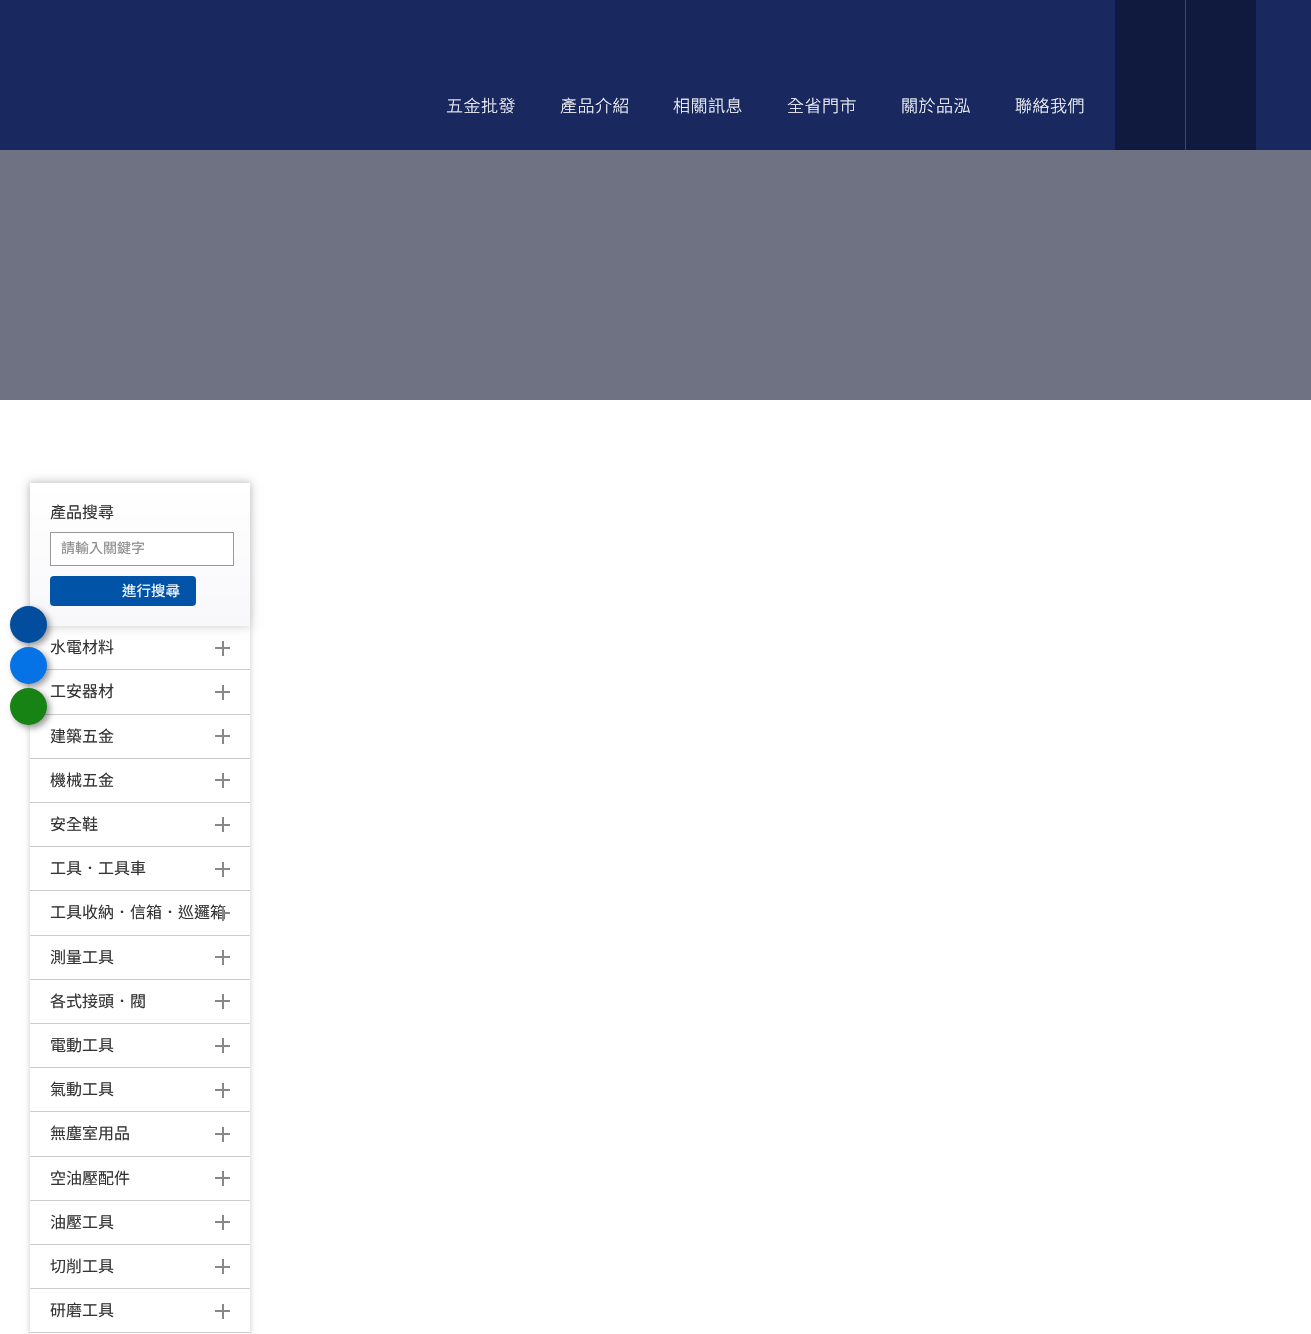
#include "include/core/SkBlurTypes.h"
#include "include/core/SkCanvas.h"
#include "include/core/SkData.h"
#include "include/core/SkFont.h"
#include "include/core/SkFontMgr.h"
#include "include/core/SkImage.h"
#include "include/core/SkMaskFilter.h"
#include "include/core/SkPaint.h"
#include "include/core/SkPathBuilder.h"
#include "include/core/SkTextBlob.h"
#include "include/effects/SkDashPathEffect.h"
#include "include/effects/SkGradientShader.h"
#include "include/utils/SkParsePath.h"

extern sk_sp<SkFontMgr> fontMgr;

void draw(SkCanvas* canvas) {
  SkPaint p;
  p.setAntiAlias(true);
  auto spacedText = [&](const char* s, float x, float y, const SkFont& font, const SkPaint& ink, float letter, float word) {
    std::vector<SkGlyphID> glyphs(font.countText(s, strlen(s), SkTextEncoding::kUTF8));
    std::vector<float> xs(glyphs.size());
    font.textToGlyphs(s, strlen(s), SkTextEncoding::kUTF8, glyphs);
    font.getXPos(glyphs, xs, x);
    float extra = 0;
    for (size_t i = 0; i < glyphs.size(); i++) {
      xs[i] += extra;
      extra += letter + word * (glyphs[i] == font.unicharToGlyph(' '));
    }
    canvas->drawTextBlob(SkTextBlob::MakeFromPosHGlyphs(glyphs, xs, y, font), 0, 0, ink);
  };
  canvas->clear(SK_ColorWHITE);
  p.setColor(SkColorSetRGB(25, 41, 96));
  canvas->drawRect(SkRect::MakeLTRB(0, 0, 1311, 150), p);
  p.setColor(SkColorSetRGB(15, 26, 62));
  canvas->drawRect(SkRect::MakeLTRB(1115, 0, 1185, 150), p);
  p.setColor(SkColorSetRGB(63, 72, 101));
  canvas->drawRect(SkRect::MakeLTRB(1185, 0, 1186, 150), p);
  p.setColor(SkColorSetRGB(15, 26, 62));
  canvas->drawRect(SkRect::MakeLTRB(1186, 0, 1256, 150), p);
  p.setColor(SkColorSetRGB(110, 114, 130));
  canvas->drawRect(SkRect::MakeLTRB(0, 150, 1311, 400), p);
  canvas->save();
  canvas->clipPath(SkPathBuilder(SkPathFillType::kEvenOdd).moveTo(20, 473).lineTo(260, 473).lineTo(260, 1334).lineTo(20, 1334).close().moveTo(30, 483).lineTo(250, 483).lineTo(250, 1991).lineTo(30, 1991).close().detach(), true);
  p.setColor(SkColorSetRGB(204, 204, 204));
  p.setMaskFilter(SkMaskFilter::MakeBlur(kNormal_SkBlurStyle, 3));
  canvas->drawRect(SkRect::MakeLTRB(30, 483, 250, 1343), p);
  p.setMaskFilter(nullptr);
  canvas->restore();
  p.setMaskFilter(SkMaskFilter::MakeBlur(kNormal_SkBlurStyle, 5));
  canvas->drawRect(SkRect::MakeLTRB(30, 483, 250, 626), p);
  p.setMaskFilter(nullptr);
  {
    const SkColor colors[] = {SK_ColorWHITE, SkColorSetRGB(248, 248, 251)};
    const float stops[] = {0, 1};
    const SkPoint ends[] = {{140, 483}, {140, 626}};
    p.setShader(SkGradientShader::MakeLinear(ends, colors, stops, 2, SkTileMode::kClamp));
    p.setAlpha(255);
  }
  canvas->drawRect(SkRect::MakeLTRB(30, 483, 250, 626), p);
  p.setShader(nullptr);
  p.setColor(SkColorSetRGB(0, 83, 166));
  canvas->drawRoundRect(SkRect::MakeLTRB(50, 576, 196, 606), 4, 4, p);
  p.setColor(SkColorSetARGB(102, 0, 0, 0));
  p.setMaskFilter(SkMaskFilter::MakeBlur(kNormal_SkBlurStyle, 3));
  canvas->drawRoundRect(SkRect::MakeLTRB(13, 609, 50, 646), 18.5f, 18.5f, p);
  p.setMaskFilter(nullptr);
  p.setColor(SkColorSetRGB(3, 77, 158));
  canvas->drawCircle(28.5f, 624.5f, 18.5f, p);
  p.setColor(SkColorSetRGB(204, 204, 204));
  canvas->drawRect(SkRect::MakeLTRB(46, 669, 250, 670), p);
  p.setColor(SkColorSetARGB(102, 0, 0, 0));
  p.setMaskFilter(SkMaskFilter::MakeBlur(kNormal_SkBlurStyle, 3));
  canvas->drawRoundRect(SkRect::MakeLTRB(13, 650, 50, 687), 18.5f, 18.5f, p);
  p.setMaskFilter(nullptr);
  p.setColor(SkColorSetRGB(5, 114, 230));
  canvas->drawCircle(28.5f, 665.5f, 18.5f, p);
  p.setColor(SkColorSetRGB(204, 204, 204));
  canvas->drawRect(SkRect::MakeLTRB(44, 714, 250, 715), p);
  p.setColor(SkColorSetARGB(102, 0, 0, 0));
  p.setMaskFilter(SkMaskFilter::MakeBlur(kNormal_SkBlurStyle, 3));
  canvas->drawRoundRect(SkRect::MakeLTRB(13, 691, 50, 728), 18.5f, 18.5f, p);
  p.setMaskFilter(nullptr);
  p.setColor(SkColorSetRGB(22, 131, 20));
  canvas->drawCircle(28.5f, 706.5f, 18.5f, p);
  p.setColor(SK_ColorWHITE);
  canvas->drawRect(SkRect::MakeLTRB(51, 534, 233, 565), p);
  p.setStyle(SkPaint::kStroke_Style);
  p.setStrokeWidth(1);
  p.setColor(SkColorSetRGB(153, 153, 153));
  canvas->drawRect(SkRect::MakeLTRB(50.5f, 532.5f, 233.5f, 565.5f), p);
  p.setStyle(SkPaint::kFill_Style);
  p.setColor(SkColorSetRGB(136, 136, 136));
  canvas->drawRect(SkRect::MakeLTRB(215, 647, 230, 649), p);
  canvas->drawRect(SkRect::MakeLTRB(222, 641, 224, 656), p);
  canvas->drawRect(SkRect::MakeLTRB(215, 691, 230, 693), p);
  canvas->drawRect(SkRect::MakeLTRB(222, 685, 224, 700), p);
  p.setColor(SkColorSetRGB(204, 204, 204));
  canvas->drawRect(SkRect::MakeLTRB(30, 758, 250, 759), p);
  p.setColor(SkColorSetRGB(136, 136, 136));
  canvas->drawRect(SkRect::MakeLTRB(215, 735, 230, 737), p);
  canvas->drawRect(SkRect::MakeLTRB(222, 729, 224, 744), p);
  p.setColor(SkColorSetRGB(204, 204, 204));
  canvas->drawRect(SkRect::MakeLTRB(30, 802, 250, 803), p);
  p.setColor(SkColorSetRGB(136, 136, 136));
  canvas->drawRect(SkRect::MakeLTRB(215, 779, 230, 781), p);
  canvas->drawRect(SkRect::MakeLTRB(222, 773, 224, 788), p);
  p.setColor(SkColorSetRGB(204, 204, 204));
  canvas->drawRect(SkRect::MakeLTRB(30, 846, 250, 847), p);
  p.setColor(SkColorSetRGB(136, 136, 136));
  canvas->drawRect(SkRect::MakeLTRB(215, 824, 230, 826), p);
  canvas->drawRect(SkRect::MakeLTRB(222, 817, 224, 832), p);
  p.setColor(SkColorSetRGB(204, 204, 204));
  canvas->drawRect(SkRect::MakeLTRB(30, 890, 250, 891), p);
  p.setColor(SkColorSetRGB(136, 136, 136));
  canvas->drawRect(SkRect::MakeLTRB(215, 868, 230, 870), p);
  canvas->drawRect(SkRect::MakeLTRB(222, 862, 224, 877), p);
  p.setColor(SkColorSetRGB(204, 204, 204));
  canvas->drawRect(SkRect::MakeLTRB(30, 935, 250, 936), p);
  canvas->drawRect(SkRect::MakeLTRB(30, 979, 250, 980), p);
  p.setColor(SkColorSetRGB(136, 136, 136));
  canvas->drawRect(SkRect::MakeLTRB(215, 956, 230, 958), p);
  canvas->drawRect(SkRect::MakeLTRB(222, 950, 224, 965), p);
  p.setColor(SkColorSetRGB(204, 204, 204));
  canvas->drawRect(SkRect::MakeLTRB(30, 1023, 250, 1024), p);
  p.setColor(SkColorSetRGB(136, 136, 136));
  canvas->drawRect(SkRect::MakeLTRB(215, 1000, 230, 1002), p);
  canvas->drawRect(SkRect::MakeLTRB(222, 994, 224, 1009), p);
  p.setColor(SkColorSetRGB(204, 204, 204));
  canvas->drawRect(SkRect::MakeLTRB(30, 1067, 250, 1068), p);
  p.setColor(SkColorSetRGB(136, 136, 136));
  canvas->drawRect(SkRect::MakeLTRB(215, 1045, 230, 1047), p);
  canvas->drawRect(SkRect::MakeLTRB(222, 1038, 224, 1053), p);
  p.setColor(SkColorSetRGB(204, 204, 204));
  canvas->drawRect(SkRect::MakeLTRB(30, 1111, 250, 1112), p);
  p.setColor(SkColorSetRGB(136, 136, 136));
  canvas->drawRect(SkRect::MakeLTRB(215, 1089, 230, 1091), p);
  canvas->drawRect(SkRect::MakeLTRB(222, 1083, 224, 1098), p);
  p.setColor(SkColorSetRGB(204, 204, 204));
  canvas->drawRect(SkRect::MakeLTRB(30, 1156, 250, 1157), p);
  p.setColor(SkColorSetRGB(136, 136, 136));
  canvas->drawRect(SkRect::MakeLTRB(215, 1133, 230, 1135), p);
  canvas->drawRect(SkRect::MakeLTRB(222, 1127, 224, 1142), p);
  p.setColor(SkColorSetRGB(204, 204, 204));
  canvas->drawRect(SkRect::MakeLTRB(30, 1200, 250, 1201), p);
  p.setColor(SkColorSetRGB(136, 136, 136));
  canvas->drawRect(SkRect::MakeLTRB(215, 1177, 230, 1179), p);
  canvas->drawRect(SkRect::MakeLTRB(222, 1171, 224, 1186), p);
  p.setColor(SkColorSetRGB(204, 204, 204));
  canvas->drawRect(SkRect::MakeLTRB(30, 1244, 250, 1245), p);
  p.setColor(SkColorSetRGB(136, 136, 136));
  canvas->drawRect(SkRect::MakeLTRB(215, 1221, 230, 1223), p);
  canvas->drawRect(SkRect::MakeLTRB(222, 1215, 224, 1230), p);
  p.setColor(SkColorSetRGB(204, 204, 204));
  canvas->drawRect(SkRect::MakeLTRB(30, 1288, 250, 1289), p);
  p.setColor(SkColorSetRGB(136, 136, 136));
  canvas->drawRect(SkRect::MakeLTRB(215, 1266, 230, 1268), p);
  canvas->drawRect(SkRect::MakeLTRB(222, 1259, 224, 1274), p);
  p.setColor(SkColorSetRGB(204, 204, 204));
  canvas->drawRect(SkRect::MakeLTRB(30, 1332, 250, 1333), p);
  p.setColor(SkColorSetRGB(136, 136, 136));
  canvas->drawRect(SkRect::MakeLTRB(215, 1310, 230, 1312), p);
  canvas->drawRect(SkRect::MakeLTRB(222, 1304, 224, 1319), p);
  SkFont font1(fontMgr->matchFamilyStyle("Noto Sans TC", SkFontStyle(300, SkFontStyle::kNormal_Width, SkFontStyle::kUpright_Slant)), 17);
  font1.setSubpixel(true);
  p.setColor(SK_ColorWHITE);
  spacedText("五金批發", 446, 112, font1, p, 0.5f, 0);
  spacedText("產品介紹", 560, 112, font1, p, 0.5f, 0);
  spacedText("相關訊息", 673, 112, font1, p, 0.5f, 0);
  spacedText("全省門市", 787, 112, font1, p, 0.5f, 0);
  spacedText("關於品泓", 901, 112, font1, p, 0.5f, 0);
  spacedText("聯絡我們", 1015, 112, font1, p, 0.5f, 0);
  SkFont font2(fontMgr->matchFamilyStyle("Noto Sans CJK TC", SkFontStyle::Normal()), 16);
  font2.setSubpixel(true);
  p.setColor(SkColorSetRGB(51, 51, 51));
  canvas->drawString("產品搜尋", 50, 518, font2, p);
  SkFont font3(fontMgr->matchFamilyStyle("Noto Sans CJK TC", SkFontStyle::Normal()), 14);
  font3.setSubpixel(true);
  p.setColor(SkColorSetRGB(136, 136, 136));
  canvas->drawString("請輸入關鍵字", 61, 553, font3, p);
  SkFont font4(fontMgr->matchFamilyStyle("Noto Sans CJK TC", SkFontStyle::Normal()), 14.5f);
  font4.setSubpixel(true);
  p.setColor(SK_ColorWHITE);
  canvas->drawString("進行搜尋", 122, 596, font4, p);
  p.setColor(SkColorSetRGB(51, 51, 51));
  canvas->drawString("水電材料", 50, 653, font2, p);
  canvas->drawString("工安器材", 50, 697, font2, p);
  canvas->drawString("建築五金", 50, 742, font2, p);
  canvas->drawString("機械五金", 50, 786, font2, p);
  canvas->drawString("安全鞋", 50, 830, font2, p);
  canvas->drawString("工具．工具車", 50, 874, font2, p);
  canvas->drawString("工具收納．信箱．巡邏箱", 50, 918, font2, p);
  p.setColor(SkColorSetRGB(136, 136, 136));
  canvas->drawRect(SkRect::MakeLTRB(215, 912, 230, 914), p);
  canvas->drawRect(SkRect::MakeLTRB(222, 906, 224, 921), p);
  p.setColor(SkColorSetRGB(51, 51, 51));
  canvas->drawString("測量工具", 50, 963, font2, p);
  canvas->drawString("各式接頭．閥", 50, 1007, font2, p);
  canvas->drawString("電動工具", 50, 1051, font2, p);
  canvas->drawString("氣動工具", 50, 1095, font2, p);
  canvas->drawString("無塵室用品", 50, 1139, font2, p);
  canvas->drawString("空油壓配件", 50, 1184, font2, p);
  canvas->drawString("油壓工具", 50, 1228, font2, p);
  canvas->drawString("切削工具", 50, 1272, font2, p);
  canvas->drawString("研磨工具", 50, 1316, font2, p);
}
